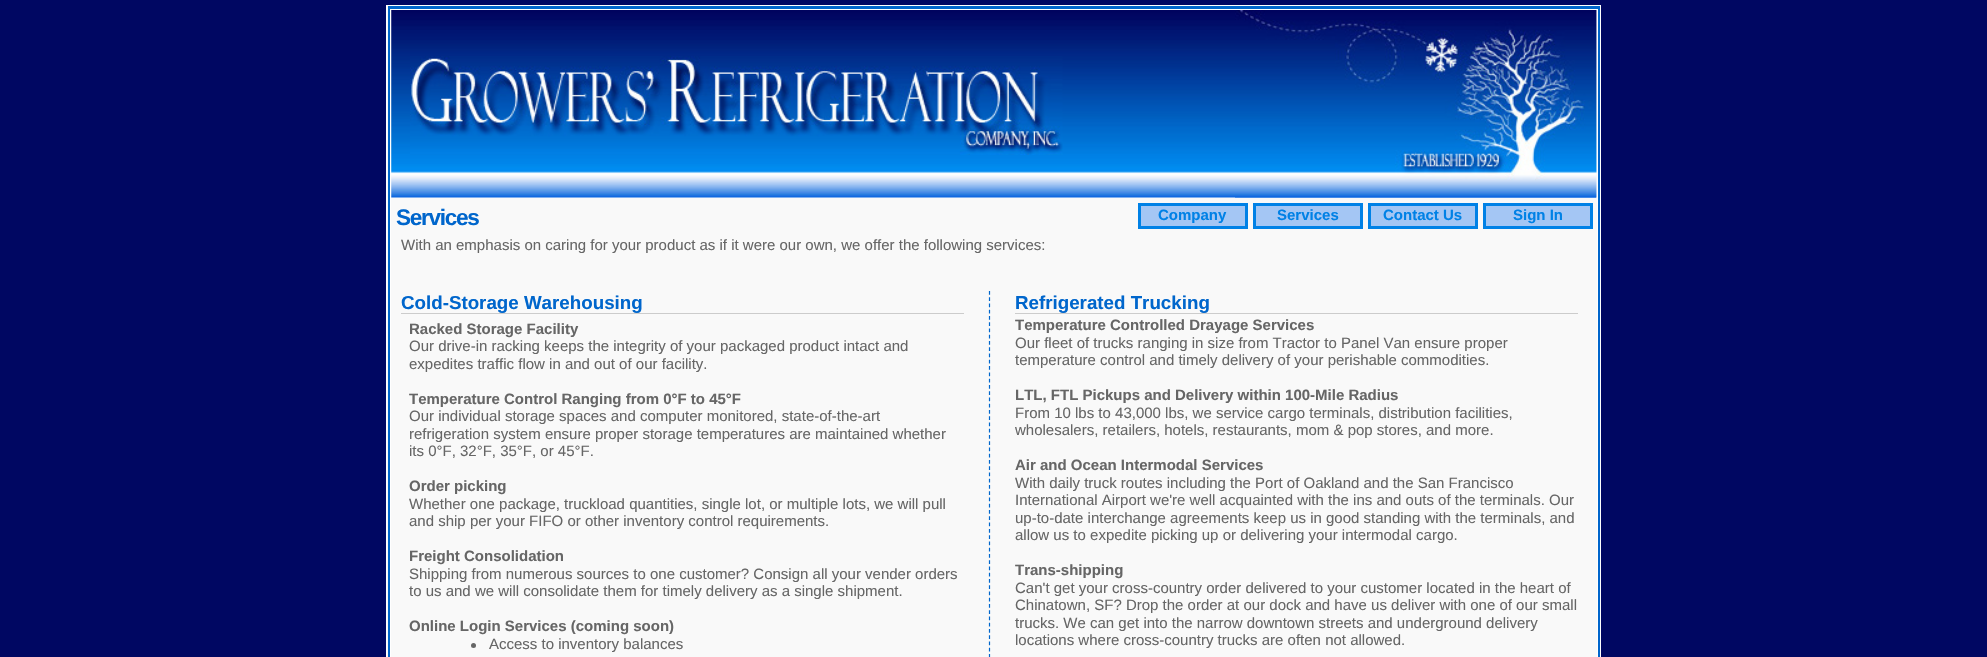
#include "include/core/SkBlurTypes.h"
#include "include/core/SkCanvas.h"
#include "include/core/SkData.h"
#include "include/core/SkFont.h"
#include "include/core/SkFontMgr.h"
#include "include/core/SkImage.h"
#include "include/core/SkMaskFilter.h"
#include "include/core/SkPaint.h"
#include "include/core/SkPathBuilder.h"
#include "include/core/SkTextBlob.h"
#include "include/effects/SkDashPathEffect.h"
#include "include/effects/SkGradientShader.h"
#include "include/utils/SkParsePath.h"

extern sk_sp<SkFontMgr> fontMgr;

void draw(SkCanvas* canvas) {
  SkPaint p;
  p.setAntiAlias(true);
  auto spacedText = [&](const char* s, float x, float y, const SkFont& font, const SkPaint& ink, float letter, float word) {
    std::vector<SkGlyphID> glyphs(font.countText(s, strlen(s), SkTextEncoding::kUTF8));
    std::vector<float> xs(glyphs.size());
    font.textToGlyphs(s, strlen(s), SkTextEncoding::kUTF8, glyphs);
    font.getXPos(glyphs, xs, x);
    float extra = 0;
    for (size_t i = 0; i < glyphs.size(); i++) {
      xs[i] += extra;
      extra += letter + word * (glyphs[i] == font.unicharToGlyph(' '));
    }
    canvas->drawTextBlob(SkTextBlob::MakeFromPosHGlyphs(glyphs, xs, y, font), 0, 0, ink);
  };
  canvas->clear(SkColorSetRGB(0, 7, 98));
  p.setColor(SkColorSetRGB(249, 249, 249));
  canvas->drawRect(SkRect::MakeLTRB(387, 6, 1597, 657), p);
  p.setStyle(SkPaint::kStroke_Style);
  p.setStrokeWidth(1);
  p.setColor(SK_ColorWHITE);
  canvas->drawRect(SkRect::MakeLTRB(386.5f, 5.5f, 1600.5f, 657.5f), p);
  p.setStrokeWidth(3);
  p.setColor(SkColorSetRGB(0, 102, 204));
  canvas->drawRect(SkRect::MakeLTRB(389.5f, 7.5f, 1598.5f, 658.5f), p);
  p.setStrokeWidth(1);
  p.setColor(SK_ColorWHITE);
  canvas->drawRect(SkRect::MakeLTRB(390.5f, 9.5f, 1597.5f, 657.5f), p);
  canvas->drawImageRect(SkImages::DeferredFromEncodedData(SkData::MakeFromFileName("images/1.png")), SkRect::MakeLTRB(391, 10, 1597, 198), SkSamplingOptions());
  canvas->drawImageRect(SkImages::DeferredFromEncodedData(SkData::MakeFromFileName("images/2.png")), SkRect::MakeLTRB(1235, 10, 1597, 198), SkSamplingOptions());
  canvas->drawImageRect(SkImages::DeferredFromEncodedData(SkData::MakeFromFileName("images/3.png")), SkRect::MakeLTRB(410, 56, 1063, 155), SkSamplingOptions());
  p.setStyle(SkPaint::kFill_Style);
  p.setColor(SkColorSetRGB(164, 198, 244));
  canvas->drawRect(SkRect::MakeLTRB(1139.5f, 204.5f, 1246.5f, 227.5f), p);
  p.setStyle(SkPaint::kStroke_Style);
  p.setStrokeWidth(3);
  p.setColor(SkColorSetRGB(0, 129, 230));
  canvas->drawRect(SkRect::MakeLTRB(1139.5f, 204.5f, 1246.5f, 227.5f), p);
  p.setStyle(SkPaint::kFill_Style);
  p.setColor(SkColorSetRGB(164, 198, 244));
  canvas->drawRect(SkRect::MakeLTRB(1254.5f, 204.5f, 1361.5f, 227.5f), p);
  p.setStyle(SkPaint::kStroke_Style);
  p.setColor(SkColorSetRGB(0, 129, 230));
  canvas->drawRect(SkRect::MakeLTRB(1254.5f, 204.5f, 1361.5f, 227.5f), p);
  p.setStyle(SkPaint::kFill_Style);
  p.setColor(SkColorSetRGB(164, 198, 244));
  canvas->drawRect(SkRect::MakeLTRB(1369.5f, 204.5f, 1476.5f, 227.5f), p);
  p.setStyle(SkPaint::kStroke_Style);
  p.setColor(SkColorSetRGB(0, 129, 230));
  canvas->drawRect(SkRect::MakeLTRB(1369.5f, 204.5f, 1476.5f, 227.5f), p);
  p.setStyle(SkPaint::kFill_Style);
  p.setColor(SkColorSetRGB(164, 198, 244));
  canvas->drawRect(SkRect::MakeLTRB(1484.5f, 204.5f, 1591.5f, 227.5f), p);
  p.setStyle(SkPaint::kStroke_Style);
  p.setColor(SkColorSetRGB(0, 129, 230));
  canvas->drawRect(SkRect::MakeLTRB(1484.5f, 204.5f, 1591.5f, 227.5f), p);
  p.setStyle(SkPaint::kFill_Style);
  p.setColor(SkColorSetRGB(204, 204, 204));
  canvas->drawRect(SkRect::MakeLTRB(401, 313, 964, 314), p);
  p.setColor(SkColorSetRGB(102, 102, 102));
  canvas->drawCircle(473.5f, 645.5f, 2.5f, p);
  p.setStyle(SkPaint::kStroke_Style);
  p.setStrokeWidth(1.2f);
  p.setColor(SkColorSetRGB(0, 102, 204));
  p.setPathEffect(SkDashPathEffect::Make({{3.75f, 2.51f}}, 0));
  canvas->drawPath(SkPathBuilder().moveTo(989.5f, 291).lineTo(989.5f, 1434).detach(), p);
  p.setPathEffect(nullptr);
  p.setStyle(SkPaint::kFill_Style);
  p.setColor(SkColorSetRGB(204, 204, 204));
  canvas->drawRect(SkRect::MakeLTRB(1015, 313, 1578, 314), p);
  SkFont font1(fontMgr->matchFamilyStyle("Liberation Sans", SkFontStyle::Bold()), 22.5f);
  font1.setSubpixel(true);
  p.setColor(SkColorSetRGB(0, 102, 204));
  spacedText("Services", 396, 225, font1, p, -1.25f, 0);
  SkFont font2(fontMgr->matchFamilyStyle("Liberation Sans", SkFontStyle::Bold()), 15);
  font2.setSubpixel(true);
  p.setColor(SkColorSetRGB(0, 129, 230));
  canvas->drawString("Company", 1158, 220, font2, p);
  canvas->drawString("Services", 1277, 220, font2, p);
  canvas->drawString("Contact Us", 1383, 220, font2, p);
  canvas->drawString("Sign In", 1513, 220, font2, p);
  SkFont font3(fontMgr->matchFamilyStyle("Liberation Sans", SkFontStyle::Normal()), 15);
  font3.setSubpixel(true);
  p.setColor(SkColorSetRGB(102, 102, 102));
  canvas->drawString("With an emphasis on caring for your product as if it were our own, we offer the following services:", 401, 250, font3, p);
  SkFont font4(fontMgr->matchFamilyStyle("Liberation Sans", SkFontStyle::Bold()), 18.75f);
  font4.setSubpixel(true);
  p.setColor(SkColorSetRGB(0, 102, 204));
  canvas->drawString("Cold-Storage Warehousing", 401, 309, font4, p);
  p.setColor(SkColorSetRGB(102, 102, 102));
  canvas->drawString("Racked Storage Facility", 409, 334, font2, p);
  canvas->drawString("Our drive-in racking keeps the integrity of your packaged product intact and", 409, 351, font3, p);
  canvas->drawString("expedites traffic flow in and out of our facility.", 409, 369, font3, p);
  canvas->drawString("Temperature Control Ranging from 0°F to 45°F", 409, 404, font2, p);
  canvas->drawString("Our individual storage spaces and computer monitored, state-of-the-art", 409, 421, font3, p);
  canvas->drawString("refrigeration system ensure proper storage temperatures are maintained whether", 409, 439, font3, p);
  canvas->drawString("its 0°F, 32°F, 35°F, or 45°F.", 409, 456, font3, p);
  canvas->drawString("Order picking", 409, 491, font2, p);
  canvas->drawString("Whether one package, truckload quantities, single lot, or multiple lots, we will pull", 409, 509, font3, p);
  canvas->drawString("and ship per your FIFO or other inventory control requirements.", 409, 526, font3, p);
  canvas->drawString("Freight Consolidation", 409, 561, font2, p);
  canvas->drawString("Shipping from numerous sources to one customer? Consign all your vender orders", 409, 579, font3, p);
  canvas->drawString("to us and we will consolidate them for timely delivery as a single shipment.", 409, 596, font3, p);
  canvas->drawString("Online Login Services (coming soon)", 409, 631, font2, p);
  canvas->drawString("Access to inventory balances", 489, 649, font3, p);
  p.setColor(SkColorSetRGB(0, 102, 204));
  canvas->drawString("Refrigerated Trucking", 1015, 309, font4, p);
  p.setColor(SkColorSetRGB(102, 102, 102));
  canvas->drawString("Temperature Controlled Drayage Services", 1015, 330, font2, p);
  canvas->drawString("Our fleet of trucks ranging in size from Tractor to Panel Van ensure proper", 1015, 348, font3, p);
  canvas->drawString("temperature control and timely delivery of your perishable commodities.", 1015, 365, font3, p);
  canvas->drawString("LTL, FTL Pickups and Delivery within 100-Mile Radius", 1015, 400, font2, p);
  canvas->drawString("From 10 lbs to 43,000 lbs, we service cargo terminals, distribution facilities,", 1015, 418, font3, p);
  canvas->drawString("wholesalers, retailers, hotels, restaurants, mom & pop stores, and more.", 1015, 435, font3, p);
  canvas->drawString("Air and Ocean Intermodal Services", 1015, 470, font2, p);
  canvas->drawString("With daily truck routes including the Port of Oakland and the San Francisco", 1015, 488, font3, p);
  canvas->drawString("International Airport we're well acquainted with the ins and outs of the terminals. Our", 1015, 505, font3, p);
  canvas->drawString("up-to-date interchange agreements keep us in good standing with the terminals, and", 1015, 523, font3, p);
  canvas->drawString("allow us to expedite picking up or delivering your intermodal cargo.", 1015, 540, font3, p);
  canvas->drawString("Trans-shipping", 1015, 575, font2, p);
  canvas->drawString("Can't get your cross-country order delivered to your customer located in the heart of", 1015, 593, font3, p);
  canvas->drawString("Chinatown, SF? Drop the order at our dock and have us deliver with one of our small", 1015, 610, font3, p);
  canvas->drawString("trucks. We can get into the narrow downtown streets and underground delivery", 1015, 628, font3, p);
  canvas->drawString("locations where cross-country trucks are often not allowed.", 1015, 645, font3, p);
}
